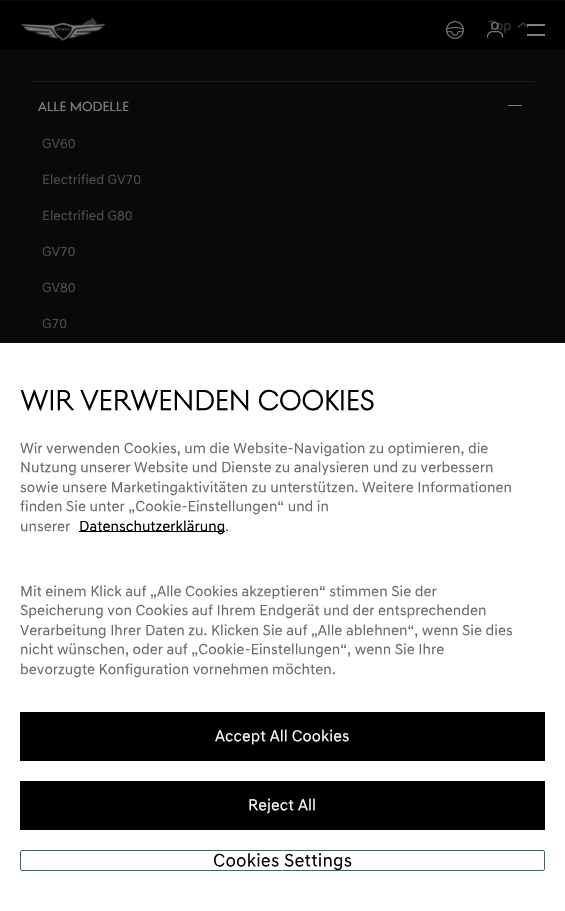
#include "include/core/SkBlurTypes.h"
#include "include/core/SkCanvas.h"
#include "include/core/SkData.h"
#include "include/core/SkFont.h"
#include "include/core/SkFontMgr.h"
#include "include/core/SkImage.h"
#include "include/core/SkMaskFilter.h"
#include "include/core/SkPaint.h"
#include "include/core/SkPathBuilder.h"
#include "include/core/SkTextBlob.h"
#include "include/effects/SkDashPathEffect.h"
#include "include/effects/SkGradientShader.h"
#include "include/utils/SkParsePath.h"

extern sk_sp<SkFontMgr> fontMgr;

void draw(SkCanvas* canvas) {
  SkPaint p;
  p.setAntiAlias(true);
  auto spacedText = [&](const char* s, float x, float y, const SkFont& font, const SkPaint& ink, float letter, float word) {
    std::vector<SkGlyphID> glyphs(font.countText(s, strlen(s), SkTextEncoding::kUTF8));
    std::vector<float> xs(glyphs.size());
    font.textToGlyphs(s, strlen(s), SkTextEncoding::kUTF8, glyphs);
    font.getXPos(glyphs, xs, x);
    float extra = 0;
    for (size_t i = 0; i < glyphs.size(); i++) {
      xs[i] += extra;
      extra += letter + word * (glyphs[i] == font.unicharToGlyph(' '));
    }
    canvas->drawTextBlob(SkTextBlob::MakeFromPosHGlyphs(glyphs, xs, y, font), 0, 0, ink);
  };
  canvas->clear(SK_ColorBLACK);
  p.setColor(SkColorSetRGB(128, 128, 128));
  canvas->drawRect(SkRect::MakeLTRB(527, 34, 545, 36), p);
  p.setColor(SkColorSetRGB(13, 13, 13));
  canvas->drawRect(SkRect::MakeLTRB(0, 0, 565, 1), p);
  canvas->drawImageRect(SkImages::DeferredFromEncodedData(SkData::MakeFromFileName("images/4.png")), SkRect::MakeLTRB(81, 17, 97, 29), SkSamplingOptions());
  canvas->drawImageRect(SkImages::DeferredFromEncodedData(SkData::MakeFromFileName("images/5.png")), SkRect::MakeLTRB(517, 22, 529, 28), SkSamplingOptions());
  p.setColor(SkColorSetRGB(9, 9, 9));
  canvas->drawRect(SkRect::MakeLTRB(0, 49, 565, 343), p);
  p.setColor(SkColorSetRGB(26, 26, 26));
  canvas->drawRect(SkRect::MakeLTRB(30, 81, 535, 82), p);
  p.setColor(SkColorSetRGB(128, 128, 128));
  canvas->drawRect(SkRect::MakeLTRB(508, 105, 522, 106), p);
  p.setColor(SK_ColorWHITE);
  canvas->drawRect(SkRect::MakeLTRB(0, 343, 565, 911), p);
  p.setColor(SK_ColorBLACK);
  canvas->drawRect(SkRect::MakeLTRB(79, 531, 225, 532), p);
  canvas->drawRect(SkRect::MakeLTRB(20, 712, 545, 761), p);
  canvas->drawRect(SkRect::MakeLTRB(20, 781, 545, 830), p);
  p.setStyle(SkPaint::kStroke_Style);
  p.setStrokeWidth(1);
  p.setColor(SkColorSetRGB(52, 110, 74));
  canvas->drawRoundRect(SkRect::MakeLTRB(20.5f, 850.5f, 544.5f, 870.5f), 1.5f, 1.5f, p);
  SkFont font1(fontMgr->matchFamilyStyle("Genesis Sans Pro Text", SkFontStyle::Normal()), 12);
  font1.setSubpixel(true);
  p.setStyle(SkPaint::kFill_Style);
  p.setColor(SkColorSetRGB(77, 77, 77));
  canvas->drawString("Top", 488, 29, font1, p);
  {
    const SkColor colors[] = {SkColorSetARGB(0, 0, 0, 0), SkColorSetARGB(102, 0, 0, 0)};
    const float stops[] = {0, 1};
    const SkPoint ends[] = {{283, 60}, {283, 0}};
    p.setShader(SkGradientShader::MakeLinear(ends, colors, stops, 2, SkTileMode::kClamp));
    p.setAlpha(255);
  }
  canvas->drawRect(SkRect::MakeLTRB(0, 0, 565, 33), p);
  p.setShader(nullptr);
  p.setColor(SkColorSetRGB(128, 128, 128));
  canvas->drawRect(SkRect::MakeLTRB(527, 24, 545, 26), p);
  canvas->drawImageRect(SkImages::DeferredFromEncodedData(SkData::MakeFromFileName("images/1.png")), SkRect::MakeLTRB(21, 23, 105, 41), SkSamplingOptions());
  canvas->drawImageRect(SkImages::DeferredFromEncodedData(SkData::MakeFromFileName("images/3.png")), SkRect::MakeLTRB(486, 21, 504, 38), SkSamplingOptions());
  canvas->drawImageRect(SkImages::DeferredFromEncodedData(SkData::MakeFromFileName("images/2.png")), SkRect::MakeLTRB(446, 21, 464, 39), SkSamplingOptions());
  SkFont font2(fontMgr->matchFamilyStyle("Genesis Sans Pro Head", SkFontStyle::Normal()), 12);
  font2.setSubpixel(true);
  canvas->drawString("Alle Modelle", 38, 110, font2, p);
  p.setColor(SkColorSetRGB(77, 77, 77));
  canvas->drawString("GV60", 42, 147, font1, p);
  canvas->drawString("Electrified GV70", 42, 183, font1, p);
  canvas->drawString("Electrified G80", 42, 219, font1, p);
  canvas->drawString("GV70", 42, 255, font1, p);
  canvas->drawString("GV80", 42, 291, font1, p);
  canvas->drawString("G70", 42, 327, font1, p);
  SkFont font3(fontMgr->matchFamilyStyle("Genesis Sans Pro Head", SkFontStyle::Bold()), 25);
  font3.setSubpixel(true);
  p.setColor(SK_ColorBLACK);
  canvas->drawString("Wir verwenden Cookies", 20, 408, font3, p);
  SkFont font4(fontMgr->matchFamilyStyle("Genesis Sans Pro Text", SkFontStyle::Normal()), 13);
  font4.setSubpixel(true);
  p.setColor(SkColorSetRGB(105, 105, 105));
  canvas->drawString("Wir verwenden Cookies, um die Website-Navigation zu optimieren, die", 20, 452, font4, p);
  canvas->drawString("Nutzung unserer Website und Dienste zu analysieren und zu verbessern", 20, 471, font4, p);
  canvas->drawString("sowie unsere Marketingaktivitäten zu unterstützen. Weitere Informationen", 20, 491, font4, p);
  canvas->drawString("finden Sie unter „Cookie-Einstellungen“ und in", 20, 510, font4, p);
  canvas->drawString("unserer", 20, 530, font4, p);
  p.setColor(SK_ColorBLACK);
  canvas->drawString("Datenschutzerklärung", 79, 530, font4, p);
  p.setColor(SkColorSetRGB(105, 105, 105));
  canvas->drawString(".", 225, 530, font4, p);
  canvas->drawString("Mit einem Klick auf „Alle Cookies akzeptieren“ stimmen Sie der", 20, 595, font4, p);
  canvas->drawString("Speicherung von Cookies auf Ihrem Endgerät und der entsprechenden", 20, 614, font4, p);
  canvas->drawString("Verarbeitung Ihrer Daten zu. Klicken Sie auf „Alle ablehnen“, wenn Sie dies", 20, 634, font4, p);
  canvas->drawString("nicht wünschen, oder auf „Cookie-Einstellungen“, wenn Sie Ihre", 20, 653, font4, p);
  canvas->drawString("bevorzugte Konfiguration vornehmen möchten.", 20, 673, font4, p);
  SkFont font5(fontMgr->matchFamilyStyle("Genesis Sans Pro Text", SkFontStyle::Normal()), 14);
  font5.setSubpixel(true);
  p.setColor(SK_ColorWHITE);
  spacedText("Accept All Cookies", 215, 740, font5, p, 0.1f, 0);
  spacedText("Reject All", 248, 809, font5, p, 0.1f, 0);
  SkFont font6(fontMgr->matchFamilyStyle("Genesis Sans Pro Text", SkFontStyle::Normal()), 16);
  font6.setSubpixel(true);
  p.setColor(SK_ColorBLACK);
  spacedText("Cookies Settings", 213, 865, font6, p, 0.2f, 0);
}
